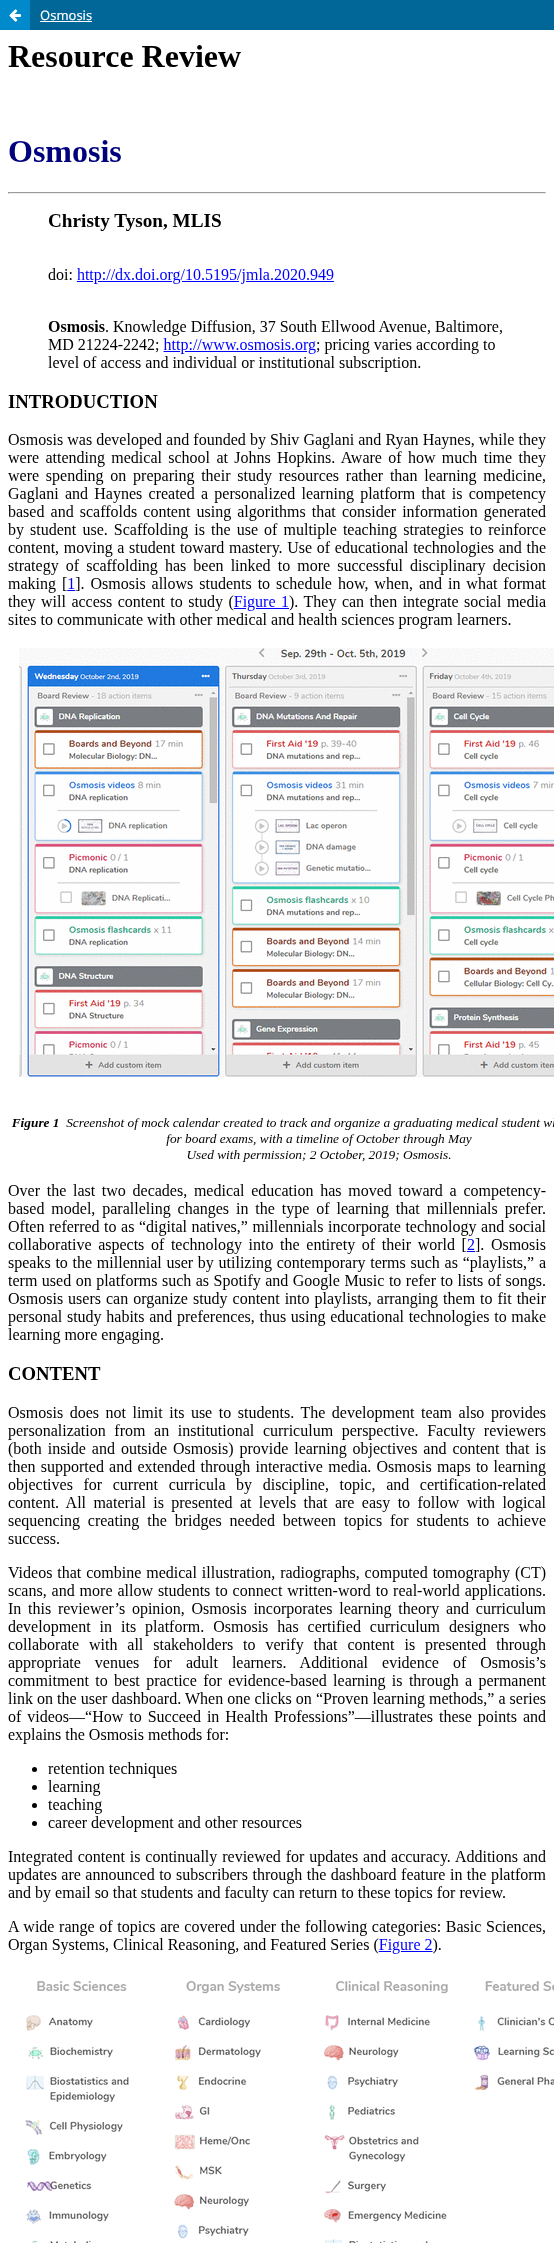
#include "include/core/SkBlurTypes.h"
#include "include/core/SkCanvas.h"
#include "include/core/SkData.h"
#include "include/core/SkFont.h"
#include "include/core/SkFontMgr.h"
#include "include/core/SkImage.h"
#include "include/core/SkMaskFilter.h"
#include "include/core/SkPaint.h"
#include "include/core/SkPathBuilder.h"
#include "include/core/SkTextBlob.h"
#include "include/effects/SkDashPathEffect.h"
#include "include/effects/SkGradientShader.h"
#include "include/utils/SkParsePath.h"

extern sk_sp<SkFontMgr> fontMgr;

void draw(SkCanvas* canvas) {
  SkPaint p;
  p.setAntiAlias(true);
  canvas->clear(SK_ColorWHITE);
  p.setColor(SkColorSetRGB(0, 103, 152));
  canvas->drawRect(SkRect::MakeLTRB(30, 0, 554, 30), p);
  p.setColor(SkColorSetRGB(0, 138, 203));
  canvas->drawRect(SkRect::MakeLTRB(0, 0, 30, 30), p);
  canvas->drawImageRect(SkImages::DeferredFromEncodedData(SkData::MakeFromFileName("images/1.png")), SkRect::MakeLTRB(9, 9, 21, 22), SkSamplingOptions());
  p.setColor(SK_ColorWHITE);
  canvas->drawRect(SkRect::MakeLTRB(40, 21, 92, 22), p);
  canvas->drawImageRect(SkImages::DeferredFromEncodedData(SkData::MakeFromFileName("images/2.png")), SkRect::MakeLTRB(8, 45, 554, 2243), SkSamplingOptions());
  SkFont font1(fontMgr->matchFamilyStyle("Noto Sans", SkFontStyle::Normal()), 13);
  font1.setSubpixel(true);
  canvas->drawString("Osmosis", 40, 20, font1, p);
}
